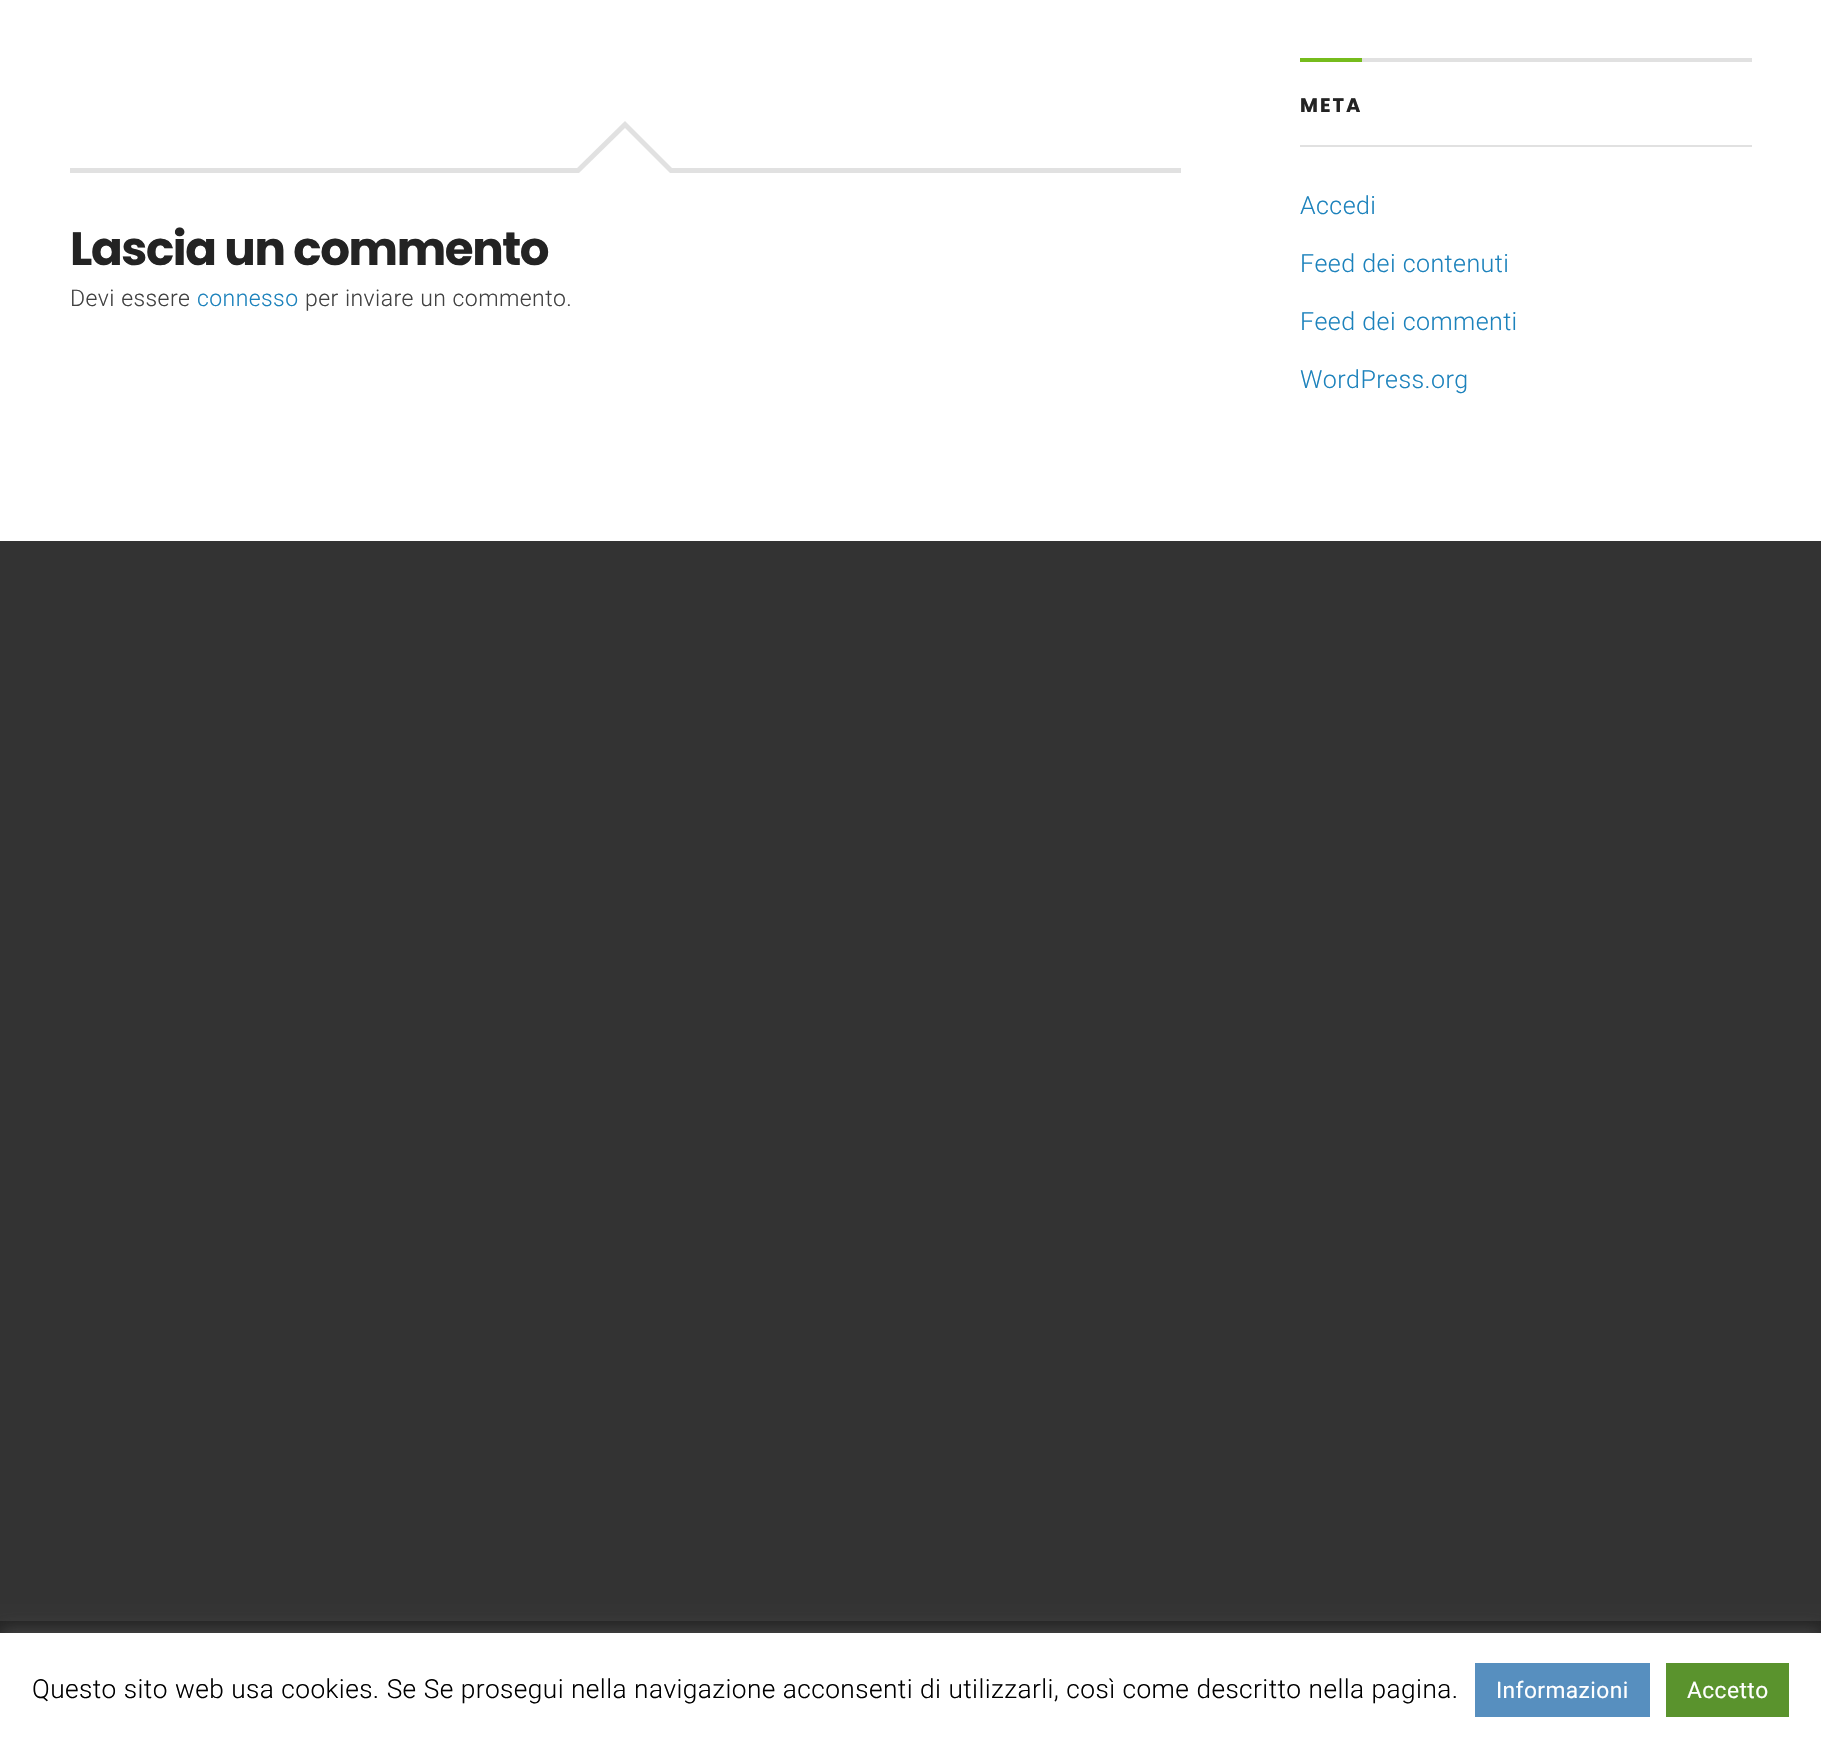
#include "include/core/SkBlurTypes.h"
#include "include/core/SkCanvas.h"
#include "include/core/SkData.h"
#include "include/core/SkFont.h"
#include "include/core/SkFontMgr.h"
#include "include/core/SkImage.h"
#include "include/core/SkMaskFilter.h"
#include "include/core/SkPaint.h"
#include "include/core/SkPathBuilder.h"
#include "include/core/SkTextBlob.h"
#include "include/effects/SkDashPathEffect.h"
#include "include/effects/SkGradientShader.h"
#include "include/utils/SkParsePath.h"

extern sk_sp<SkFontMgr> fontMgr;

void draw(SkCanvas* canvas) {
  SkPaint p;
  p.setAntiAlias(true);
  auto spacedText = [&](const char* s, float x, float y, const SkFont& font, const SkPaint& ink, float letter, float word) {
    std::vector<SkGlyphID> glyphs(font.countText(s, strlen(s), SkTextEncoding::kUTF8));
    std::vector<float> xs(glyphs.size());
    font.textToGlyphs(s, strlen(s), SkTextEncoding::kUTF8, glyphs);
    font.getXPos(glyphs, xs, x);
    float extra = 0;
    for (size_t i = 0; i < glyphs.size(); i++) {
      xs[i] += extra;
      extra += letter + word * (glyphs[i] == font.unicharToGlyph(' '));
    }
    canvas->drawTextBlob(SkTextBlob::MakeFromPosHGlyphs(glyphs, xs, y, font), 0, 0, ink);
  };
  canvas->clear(SK_ColorWHITE);
  p.setColor(SkColorSetRGB(225, 225, 225));
  canvas->drawRect(SkRect::MakeLTRB(70, 168, 1181, 173), p);
  canvas->drawPath(SkPathBuilder().moveTo(677, 173).lineTo(572, 173).lineTo(625, 121).close().detach(), p);
  p.setColor(SK_ColorWHITE);
  canvas->drawPath(SkPathBuilder().moveTo(670, 173).lineTo(579, 173).lineTo(625, 128).close().detach(), p);
  p.setColor(SkColorSetRGB(225, 225, 225));
  canvas->drawRect(SkRect::MakeLTRB(1362, 58, 1752, 62), p);
  canvas->drawRect(SkRect::MakeLTRB(1300, 145, 1752, 147), p);
  p.setColor(SkColorSetRGB(118, 188, 28));
  canvas->drawRect(SkRect::MakeLTRB(1300, 58, 1362, 62), p);
  p.setColor(SkColorSetRGB(51, 51, 51));
  canvas->drawRect(SkRect::MakeLTRB(0, 541, 1821, 1621), p);
  p.setColor(SkColorSetRGB(34, 34, 34));
  canvas->drawRect(SkRect::MakeLTRB(0, 1621, 1821, 1633), p);
  p.setColor(SkColorSetARGB(77, 172, 171, 171));
  p.setMaskFilter(SkMaskFilter::MakeBlur(kNormal_SkBlurStyle, 9));
  canvas->drawRect(SkRect::MakeLTRB(0, 1631, 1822, 1736), p);
  p.setMaskFilter(nullptr);
  p.setColor(SK_ColorWHITE);
  canvas->drawRect(SkRect::MakeLTRB(0, 1633, 1821, 1737), p);
  p.setColor(SkColorSetRGB(87, 143, 191));
  canvas->drawRect(SkRect::MakeLTRB(1475, 1663, 1650, 1717), p);
  p.setColor(SkColorSetRGB(90, 147, 45));
  canvas->drawRect(SkRect::MakeLTRB(1666, 1663, 1789, 1717), p);
  SkFont font1(fontMgr->matchFamilyStyle("Poppins", SkFontStyle::Bold()), 46.75f);
  font1.setSubpixel(true);
  p.setColor(SkColorSetRGB(35, 35, 35));
  spacedText("Lascia un commento", 70, 265, font1, p, -1.4f, 0.25f);
  SkFont font2(fontMgr->matchFamilyStyle("Roboto", SkFontStyle(300, SkFontStyle::kNormal_Width, SkFontStyle::kUpright_Slant)), 23);
  font2.setSubpixel(true);
  p.setColor(SkColorSetRGB(65, 65, 65));
  spacedText("Devi essere", 70, 306, font2, p, 0.42f, 0.25f);
  p.setColor(SkColorSetRGB(28, 130, 188));
  spacedText("connesso", 197, 306, font2, p, 0.42f, 0);
  p.setColor(SkColorSetRGB(65, 65, 65));
  spacedText("per inviare un commento.", 305, 306, font2, p, 0.42f, 0.25f);
  SkFont font3(fontMgr->matchFamilyStyle("Poppins", SkFontStyle::Bold()), 19.5f);
  font3.setSubpixel(true);
  p.setColor(SkColorSetRGB(35, 35, 35));
  spacedText("META", 1300, 112, font3, p, 2, 0);
  SkFont font4(fontMgr->matchFamilyStyle("Roboto", SkFontStyle(300, SkFontStyle::kNormal_Width, SkFontStyle::kUpright_Slant)), 25);
  font4.setSubpixel(true);
  p.setColor(SkColorSetRGB(28, 130, 188));
  spacedText("Accedi", 1300, 214, font4, p, 0.42f, 0);
  spacedText("Feed dei contenuti", 1300, 272, font4, p, 0.42f, 0.25f);
  spacedText("Feed dei commenti", 1300, 330, font4, p, 0.42f, 0.25f);
  spacedText("WordPress.org", 1300, 388, font4, p, 0.42f, 0);
  SkFont font5(fontMgr->matchFamilyStyle("Roboto", SkFontStyle(300, SkFontStyle::kNormal_Width, SkFontStyle::kUpright_Slant)), 26.25f);
  font5.setSubpixel(true);
  p.setColor(SK_ColorBLACK);
  spacedText("Questo sito web usa cookies. Se Se prosegui nella navigazione acconsenti di utilizzarli, così come descritto nella pagina.", 32, 1698, font5, p, 0.42f, 0.25f);
  SkFont font6(fontMgr->matchFamilyStyle("Roboto", SkFontStyle::Normal()), 22.75f);
  font6.setSubpixel(true);
  p.setColor(SK_ColorWHITE);
  spacedText("Informazioni", 1496, 1698, font6, p, 0.42f, 0);
  spacedText("Accetto", 1687, 1698, font6, p, 0.42f, 0);
}
